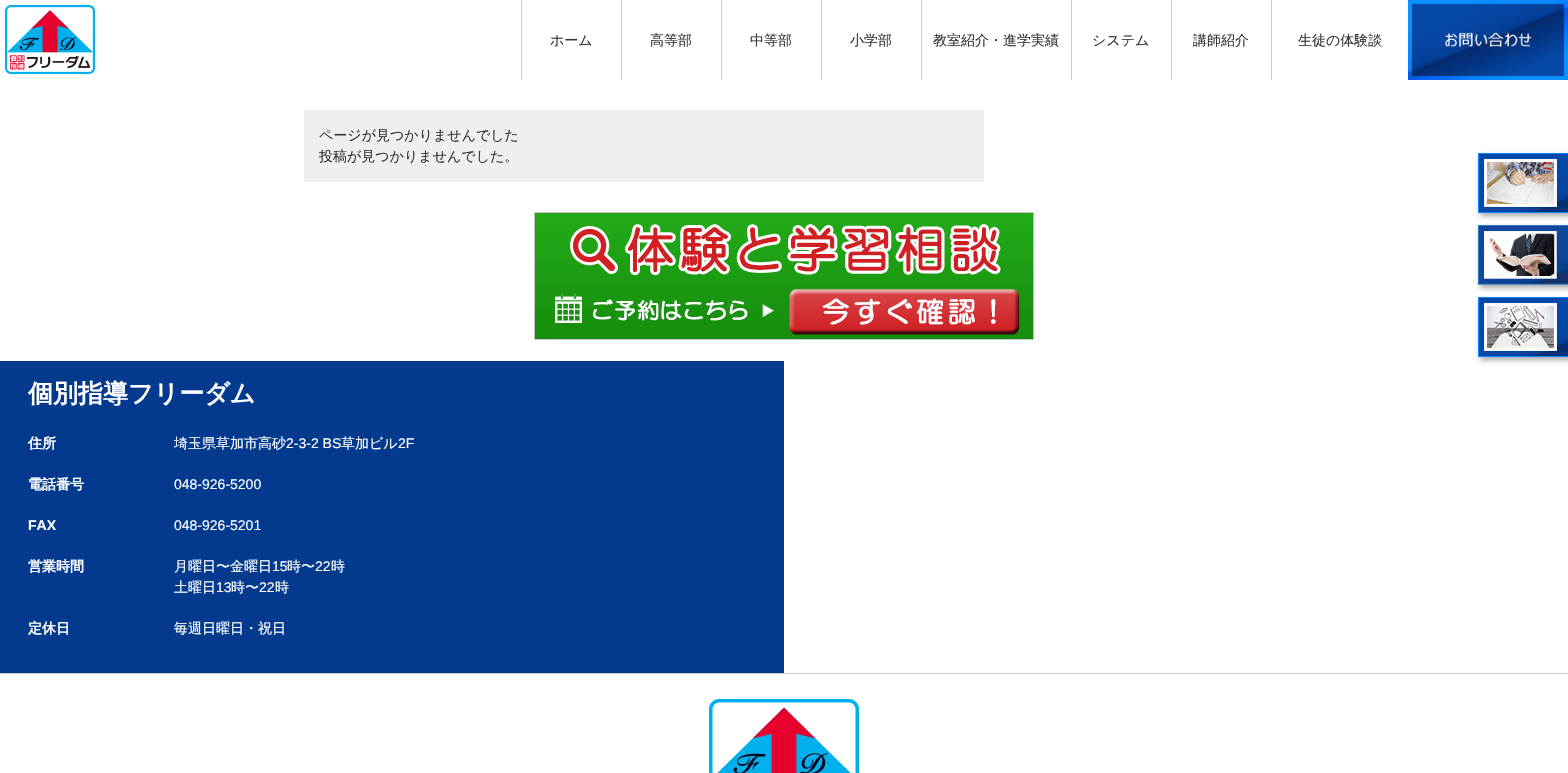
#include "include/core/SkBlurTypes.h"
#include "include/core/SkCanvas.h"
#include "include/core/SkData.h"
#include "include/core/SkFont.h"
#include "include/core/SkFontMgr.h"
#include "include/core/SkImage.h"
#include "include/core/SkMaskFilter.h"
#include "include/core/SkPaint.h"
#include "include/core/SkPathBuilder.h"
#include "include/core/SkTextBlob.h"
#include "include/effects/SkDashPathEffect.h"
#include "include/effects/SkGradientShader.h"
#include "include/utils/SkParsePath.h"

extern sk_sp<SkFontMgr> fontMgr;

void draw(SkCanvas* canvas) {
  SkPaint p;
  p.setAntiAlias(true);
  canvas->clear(SK_ColorWHITE);
  canvas->drawImageRect(SkImages::DeferredFromEncodedData(SkData::MakeFromFileName("images/1.png")), SkRect::MakeLTRB(5, 5, 95, 74), SkSamplingOptions());
  p.setColor(SkColorSetRGB(204, 204, 204));
  canvas->drawRect(SkRect::MakeLTRB(521, 0, 522, 80), p);
  canvas->drawRect(SkRect::MakeLTRB(621, 0, 622, 80), p);
  canvas->drawRect(SkRect::MakeLTRB(721, 0, 722, 80), p);
  canvas->drawRect(SkRect::MakeLTRB(821, 0, 822, 80), p);
  canvas->drawRect(SkRect::MakeLTRB(921, 0, 922, 80), p);
  canvas->drawRect(SkRect::MakeLTRB(1071, 0, 1072, 80), p);
  canvas->drawRect(SkRect::MakeLTRB(1171, 0, 1172, 80), p);
  canvas->drawRect(SkRect::MakeLTRB(1271, 0, 1272, 80), p);
  canvas->drawImageRect(SkImages::DeferredFromEncodedData(SkData::MakeFromFileName("images/2.png")), SkRect::MakeLTRB(1408, 0, 1568, 80), SkSamplingOptions());
  p.setColor(SkColorSetRGB(239, 239, 239));
  canvas->drawRect(SkRect::MakeLTRB(304, 110, 984, 182), p);
  canvas->drawImageRect(SkImages::DeferredFromEncodedData(SkData::MakeFromFileName("images/3.png")), SkRect::MakeLTRB(534, 212, 1034, 340), SkSamplingOptions());
  canvas->drawImageRect(SkImages::DeferredFromEncodedData(SkData::MakeFromFileName("images/4.png")), SkRect::MakeLTRB(1475, 151, 1568, 221), SkSamplingOptions());
  canvas->drawImageRect(SkImages::DeferredFromEncodedData(SkData::MakeFromFileName("images/5.png")), SkRect::MakeLTRB(1475, 223, 1568, 292), SkSamplingOptions());
  canvas->drawImageRect(SkImages::DeferredFromEncodedData(SkData::MakeFromFileName("images/6.png")), SkRect::MakeLTRB(1475, 295, 1568, 365), SkSamplingOptions());
  p.setColor(SkColorSetRGB(3, 58, 141));
  canvas->drawRect(SkRect::MakeLTRB(0, 361, 784, 673), p);
  p.setColor(SkColorSetRGB(204, 204, 204));
  canvas->drawRect(SkRect::MakeLTRB(0, 673, 1568, 674), p);
  canvas->drawImageRect(SkImages::DeferredFromEncodedData(SkData::MakeFromFileName("images/7.png")), SkRect::MakeLTRB(709, 699, 859, 773), SkSamplingOptions());
  SkFont font1(fontMgr->matchFamilyStyle("WenQuanYi Zen Hei", SkFontStyle(500, SkFontStyle::kNormal_Width, SkFontStyle::kUpright_Slant)), 14);
  font1.setSubpixel(true);
  p.setColor(SkColorSetRGB(51, 51, 51));
  canvas->drawString("ホーム", 550, 45, font1, p);
  canvas->drawString("高等部", 650, 45, font1, p);
  canvas->drawString("中等部", 750, 45, font1, p);
  canvas->drawString("小学部", 850, 45, font1, p);
  canvas->drawString("教室紹介・進学実績", 933, 45, font1, p);
  canvas->drawString("システム", 1092, 45, font1, p);
  canvas->drawString("講師紹介", 1193, 45, font1, p);
  canvas->drawString("生徒の体験談", 1298, 45, font1, p);
  canvas->drawString("ページが見つかりませんでした", 319, 140, font1, p);
  canvas->drawString("投稿が見つかりませんでした。", 319, 161, font1, p);
  SkFont font2(fontMgr->matchFamilyStyle("WenQuanYi Zen Hei", SkFontStyle::Bold()), 25);
  font2.setSubpixel(true);
  p.setColor(SK_ColorWHITE);
  canvas->drawString("個別指導フリーダム", 28, 402, font2, p);
  SkFont font3(fontMgr->matchFamilyStyle("WenQuanYi Zen Hei", SkFontStyle::Bold()), 14);
  font3.setSubpixel(true);
  canvas->drawString("住所", 28, 448, font3, p);
  canvas->drawString("埼玉県草加市高砂", 174, 448, font1, p);
  SkFont font4(fontMgr->matchFamilyStyle("Liberation Sans", SkFontStyle::Normal()), 14);
  font4.setSubpixel(true);
  canvas->drawString("2-3-2 BS", 286, 448, font4, p);
  canvas->drawString("草加ビル", 341, 448, font1, p);
  canvas->drawString("2F", 398, 448, font4, p);
  canvas->drawString("電話番号", 28, 489, font3, p);
  canvas->drawString("048-926-5200", 174, 489, font4, p);
  SkFont font5(fontMgr->matchFamilyStyle("Liberation Sans", SkFontStyle::Bold()), 14);
  font5.setSubpixel(true);
  canvas->drawString("FAX", 28, 530, font5, p);
  canvas->drawString("048-926-5201", 174, 530, font4, p);
  canvas->drawString("営業時間", 28, 571, font3, p);
  canvas->drawString("月曜日〜金曜日", 174, 571, font1, p);
  canvas->drawString("15", 272, 571, font4, p);
  canvas->drawString("時〜", 287, 571, font1, p);
  canvas->drawString("22", 315, 571, font4, p);
  canvas->drawString("時", 331, 571, font1, p);
  canvas->drawString("土曜日", 174, 592, font1, p);
  canvas->drawString("13", 216, 592, font4, p);
  canvas->drawString("時〜", 231, 592, font1, p);
  canvas->drawString("22", 259, 592, font4, p);
  canvas->drawString("時", 275, 592, font1, p);
  canvas->drawString("定休日", 28, 633, font3, p);
  canvas->drawString("毎週日曜日・祝日", 174, 633, font1, p);
}
